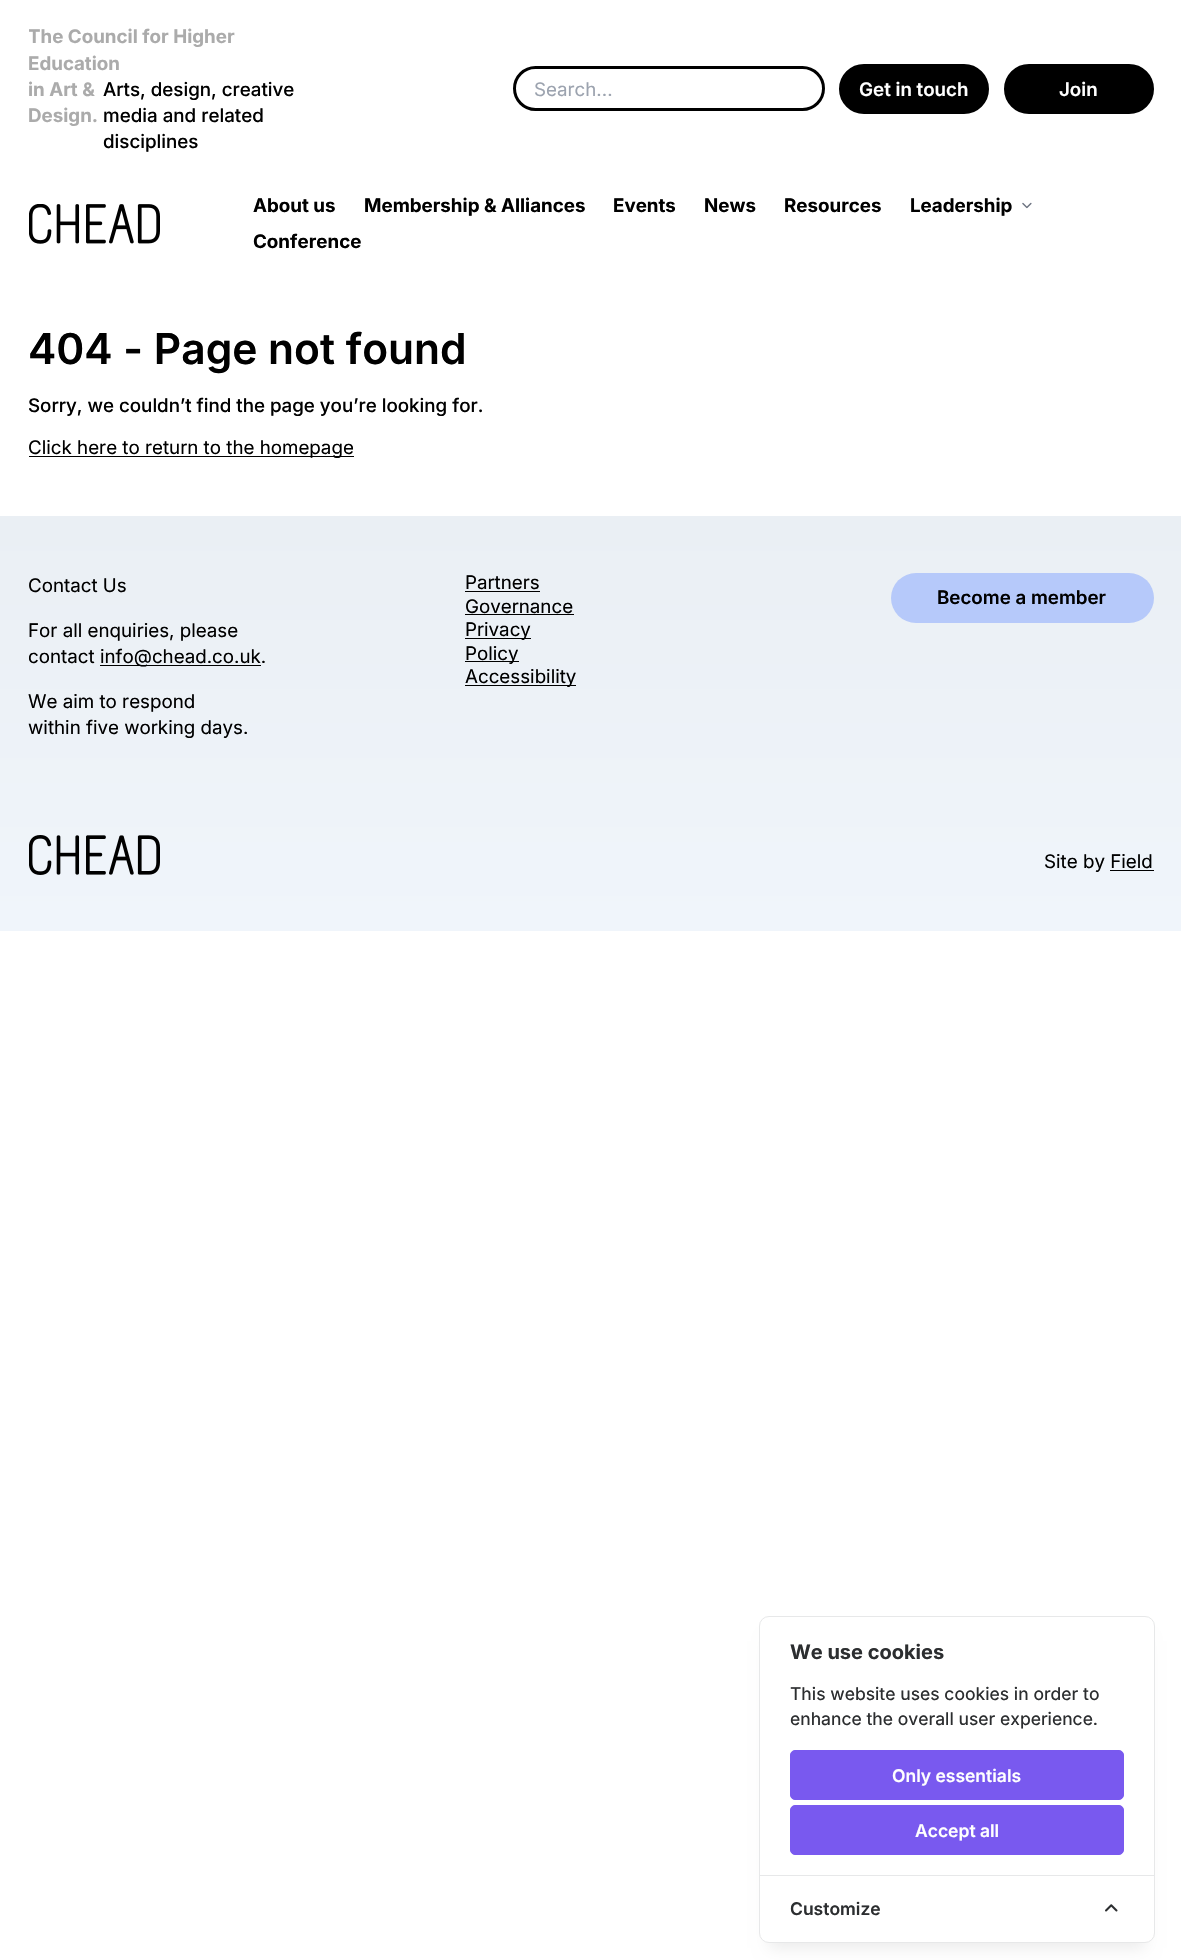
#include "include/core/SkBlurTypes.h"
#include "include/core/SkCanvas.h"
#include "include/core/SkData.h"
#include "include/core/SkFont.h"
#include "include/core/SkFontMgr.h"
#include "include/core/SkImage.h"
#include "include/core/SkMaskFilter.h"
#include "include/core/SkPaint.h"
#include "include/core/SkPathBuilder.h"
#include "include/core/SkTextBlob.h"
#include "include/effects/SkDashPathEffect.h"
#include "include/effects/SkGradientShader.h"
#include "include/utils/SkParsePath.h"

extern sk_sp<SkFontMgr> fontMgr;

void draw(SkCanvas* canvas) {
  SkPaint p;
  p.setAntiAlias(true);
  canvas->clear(SK_ColorWHITE);
  p.setStyle(SkPaint::kStroke_Style);
  p.setStrokeWidth(3);
  p.setColor(SK_ColorBLACK);
  canvas->drawRoundRect(SkRect::MakeLTRB(514.5f, 67.5f, 823.5f, 109.5f), 21, 21, p);
  p.setStyle(SkPaint::kFill_Style);
  canvas->drawRoundRect(SkRect::MakeLTRB(840.5f, 65.5f, 987.5f, 112.5f), 23.5f, 23.5f, p);
  p.setStyle(SkPaint::kStroke_Style);
  canvas->drawRoundRect(SkRect::MakeLTRB(840.5f, 65.5f, 987.5f, 112.5f), 23.5f, 23.5f, p);
  p.setStyle(SkPaint::kFill_Style);
  canvas->drawRoundRect(SkRect::MakeLTRB(1005.5f, 65.5f, 1152.5f, 112.5f), 23.5f, 23.5f, p);
  p.setStyle(SkPaint::kStroke_Style);
  canvas->drawRoundRect(SkRect::MakeLTRB(1005.5f, 65.5f, 1152.5f, 112.5f), 23.5f, 23.5f, p);
  canvas->drawImageRect(SkImages::DeferredFromEncodedData(SkData::MakeFromFileName("images/1.png")), SkRect::MakeLTRB(29, 204, 160, 244), SkSamplingOptions());
  canvas->drawImageRect(SkImages::DeferredFromEncodedData(SkData::MakeFromFileName("images/2.png")), SkRect::MakeLTRB(1022, 202, 1032, 209), SkSamplingOptions());
  p.setStyle(SkPaint::kFill_Style);
  canvas->drawRect(SkRect::MakeLTRB(29, 456, 354, 457), p);
  {
    const SkColor colors[] = {SkColorSetRGB(234, 239, 244), SkColorSetRGB(240, 245, 251)};
    const float stops[] = {0, 1};
    const SkPoint ends[] = {{591, 516}, {591, 931}};
    p.setShader(SkGradientShader::MakeLinear(ends, colors, stops, 2, SkTileMode::kClamp));
    p.setAlpha(255);
  }
  canvas->drawRect(SkRect::MakeLTRB(0, 516, 1181, 931), p);
  p.setShader(nullptr);
  p.setColor(SK_ColorBLACK);
  canvas->drawRect(SkRect::MakeLTRB(100, 665, 261, 666), p);
  canvas->drawImageRect(SkImages::DeferredFromEncodedData(SkData::MakeFromFileName("images/3.png")), SkRect::MakeLTRB(29, 835, 160, 875), SkSamplingOptions());
  canvas->drawRect(SkRect::MakeLTRB(465, 591, 540, 592), p);
  canvas->drawRect(SkRect::MakeLTRB(465, 614, 574, 615), p);
  canvas->drawRect(SkRect::MakeLTRB(465, 638, 531, 639), p);
  canvas->drawRect(SkRect::MakeLTRB(465, 661, 519, 662), p);
  canvas->drawRect(SkRect::MakeLTRB(465, 685, 576, 686), p);
  p.setColor(SkColorSetRGB(182, 201, 250));
  canvas->drawRoundRect(SkRect::MakeLTRB(891, 573, 1154, 623), 25, 25, p);
  p.setColor(SK_ColorBLACK);
  canvas->drawRect(SkRect::MakeLTRB(1110, 870, 1154, 871), p);
  p.setColor(SkColorSetARGB(20, 0, 0, 0));
  p.setMaskFilter(SkMaskFilter::MakeBlur(kNormal_SkBlurStyle, 7.5f));
  canvas->drawRect(SkRect::MakeLTRB(769, 1641, 1145, 1948), p);
  p.setMaskFilter(nullptr);
  p.setColor(SK_ColorWHITE);
  canvas->drawRoundRect(SkRect::MakeLTRB(759.5f, 1616.5f, 1154.5f, 1942.5f), 9.5f, 9.5f, p);
  p.setStyle(SkPaint::kStroke_Style);
  p.setStrokeWidth(1);
  p.setColor(SkColorSetRGB(231, 232, 233));
  canvas->drawRoundRect(SkRect::MakeLTRB(759.5f, 1616.5f, 1154.5f, 1942.5f), 9.5f, 9.5f, p);
  p.setStyle(SkPaint::kFill_Style);
  p.setColor(SkColorSetRGB(121, 89, 239));
  canvas->drawRoundRect(SkRect::MakeLTRB(790.5f, 1750.5f, 1123.5f, 1799.5f), 4.5f, 4.5f, p);
  p.setStyle(SkPaint::kStroke_Style);
  canvas->drawRoundRect(SkRect::MakeLTRB(790.5f, 1750.5f, 1123.5f, 1799.5f), 4.5f, 4.5f, p);
  p.setStyle(SkPaint::kFill_Style);
  canvas->drawRoundRect(SkRect::MakeLTRB(790.5f, 1805.5f, 1123.5f, 1854.5f), 4.5f, 4.5f, p);
  p.setStyle(SkPaint::kStroke_Style);
  canvas->drawRoundRect(SkRect::MakeLTRB(790.5f, 1805.5f, 1123.5f, 1854.5f), 4.5f, 4.5f, p);
  p.setStyle(SkPaint::kFill_Style);
  p.setColor(SkColorSetRGB(231, 232, 233));
  canvas->drawRect(SkRect::MakeLTRB(760, 1875, 1154, 1876), p);
  canvas->drawImageRect(SkImages::DeferredFromEncodedData(SkData::MakeFromFileName("images/4.png")), SkRect::MakeLTRB(1105, 1904, 1118, 1912), SkSamplingOptions());
  canvas->save();
  canvas->clipRect(SkRect::MakeLTRB(29, 24, 1154, 155));
  SkFont font1(fontMgr->matchFamilyStyle("Inter", SkFontStyle::Bold()), 18.75f);
  font1.setSubpixel(true);
  p.setColor(SkColorSetRGB(171, 171, 171));
  canvas->drawString("The Council for Higher", 28, 43, font1, p);
  canvas->restore();
  canvas->drawString("Education", 28, 70, font1, p);
  canvas->drawString("in Art &", 28, 96, font1, p);
  canvas->drawString("Design.", 28, 122, font1, p);
  SkFont font2(fontMgr->matchFamilyStyle("Inter", SkFontStyle(500, SkFontStyle::kNormal_Width, SkFontStyle::kUpright_Slant)), 18.75f);
  font2.setSubpixel(true);
  p.setColor(SK_ColorBLACK);
  canvas->drawString("Arts, design, creative", 103, 96, font2, p);
  canvas->drawString("media and related", 103, 122, font2, p);
  canvas->drawString("disciplines", 103, 148, font2, p);
  SkFont font3(fontMgr->matchFamilyStyle("Inter", SkFontStyle::Normal()), 18.75f);
  font3.setSubpixel(true);
  p.setColor(SkColorSetRGB(156, 163, 175));
  canvas->drawString("Search...", 534, 96, font3, p);
  SkFont font4(fontMgr->matchFamilyStyle("Inter", SkFontStyle(600, SkFontStyle::kNormal_Width, SkFontStyle::kUpright_Slant)), 18.75f);
  font4.setSubpixel(true);
  p.setColor(SK_ColorWHITE);
  canvas->drawString("Get in touch", 859, 96, font4, p);
  canvas->drawString("Join", 1059, 96, font4, p);
  p.setColor(SK_ColorBLACK);
  canvas->drawString("About us", 253, 212, font1, p);
  canvas->drawString("Membership & Alliances", 364, 212, font1, p);
  canvas->drawString("Events", 613, 212, font1, p);
  canvas->drawString("News", 704, 212, font1, p);
  canvas->drawString("Resources", 784, 212, font1, p);
  canvas->drawString("Leadership", 910, 212, font1, p);
  canvas->drawString("Conference", 253, 248, font1, p);
  SkFont font5(fontMgr->matchFamilyStyle("Inter", SkFontStyle(600, SkFontStyle::kNormal_Width, SkFontStyle::kUpright_Slant)), 42.5f);
  font5.setSubpixel(true);
  canvas->drawString("404 - Page not found", 28, 364, font5, p);
  canvas->drawString("Sorry, we couldn’t find the page you’re looking for.", 28, 412, font2, p);
  canvas->drawString("Click here to return to the homepage", 28, 454, font3, p);
  canvas->drawString("Contact Us", 28, 592, font3, p);
  canvas->drawString("For all enquiries, please", 28, 637, font3, p);
  canvas->drawString("contact", 28, 663, font3, p);
  canvas->drawString("info@chead.co.uk.", 100, 663, font3, p);
  canvas->drawString("We aim to respond", 28, 708, font3, p);
  canvas->drawString("within five working days.", 28, 734, font3, p);
  canvas->drawString("Partners", 465, 589, font3, p);
  canvas->drawString("Governance", 465, 613, font3, p);
  canvas->drawString("Privacy", 465, 636, font3, p);
  canvas->drawString("Policy", 465, 660, font3, p);
  canvas->drawString("Accessibility", 465, 683, font3, p);
  canvas->drawString("Become a member", 937, 604, font4, p);
  canvas->drawString("Site by Field", 1044, 868, font3, p);
  SkFont font6(fontMgr->matchFamilyStyle("Inter", SkFontStyle::Bold()), 20);
  font6.setSubpixel(true);
  p.setColor(SkColorSetRGB(44, 46, 48));
  canvas->drawString("We use cookies", 790, 1659, font6, p);
  SkFont font7(fontMgr->matchFamilyStyle("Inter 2", SkFontStyle::Normal()), 17.5f);
  font7.setSubpixel(true);
  canvas->drawString("This website uses cookies in order to", 790, 1700, font7, p);
  canvas->drawString("enhance the overall user experience.", 790, 1725, font7, p);
  SkFont font8(fontMgr->matchFamilyStyle("Inter", SkFontStyle(600, SkFontStyle::kNormal_Width, SkFontStyle::kUpright_Slant)), 17.5f);
  font8.setSubpixel(true);
  p.setColor(SK_ColorWHITE);
  canvas->drawString("Only essentials", 892, 1782, font8, p);
  canvas->drawString("Accept all", 915, 1837, font8, p);
  p.setColor(SkColorSetRGB(44, 46, 48));
  canvas->drawString("Customize", 790, 1915, font8, p);
}
